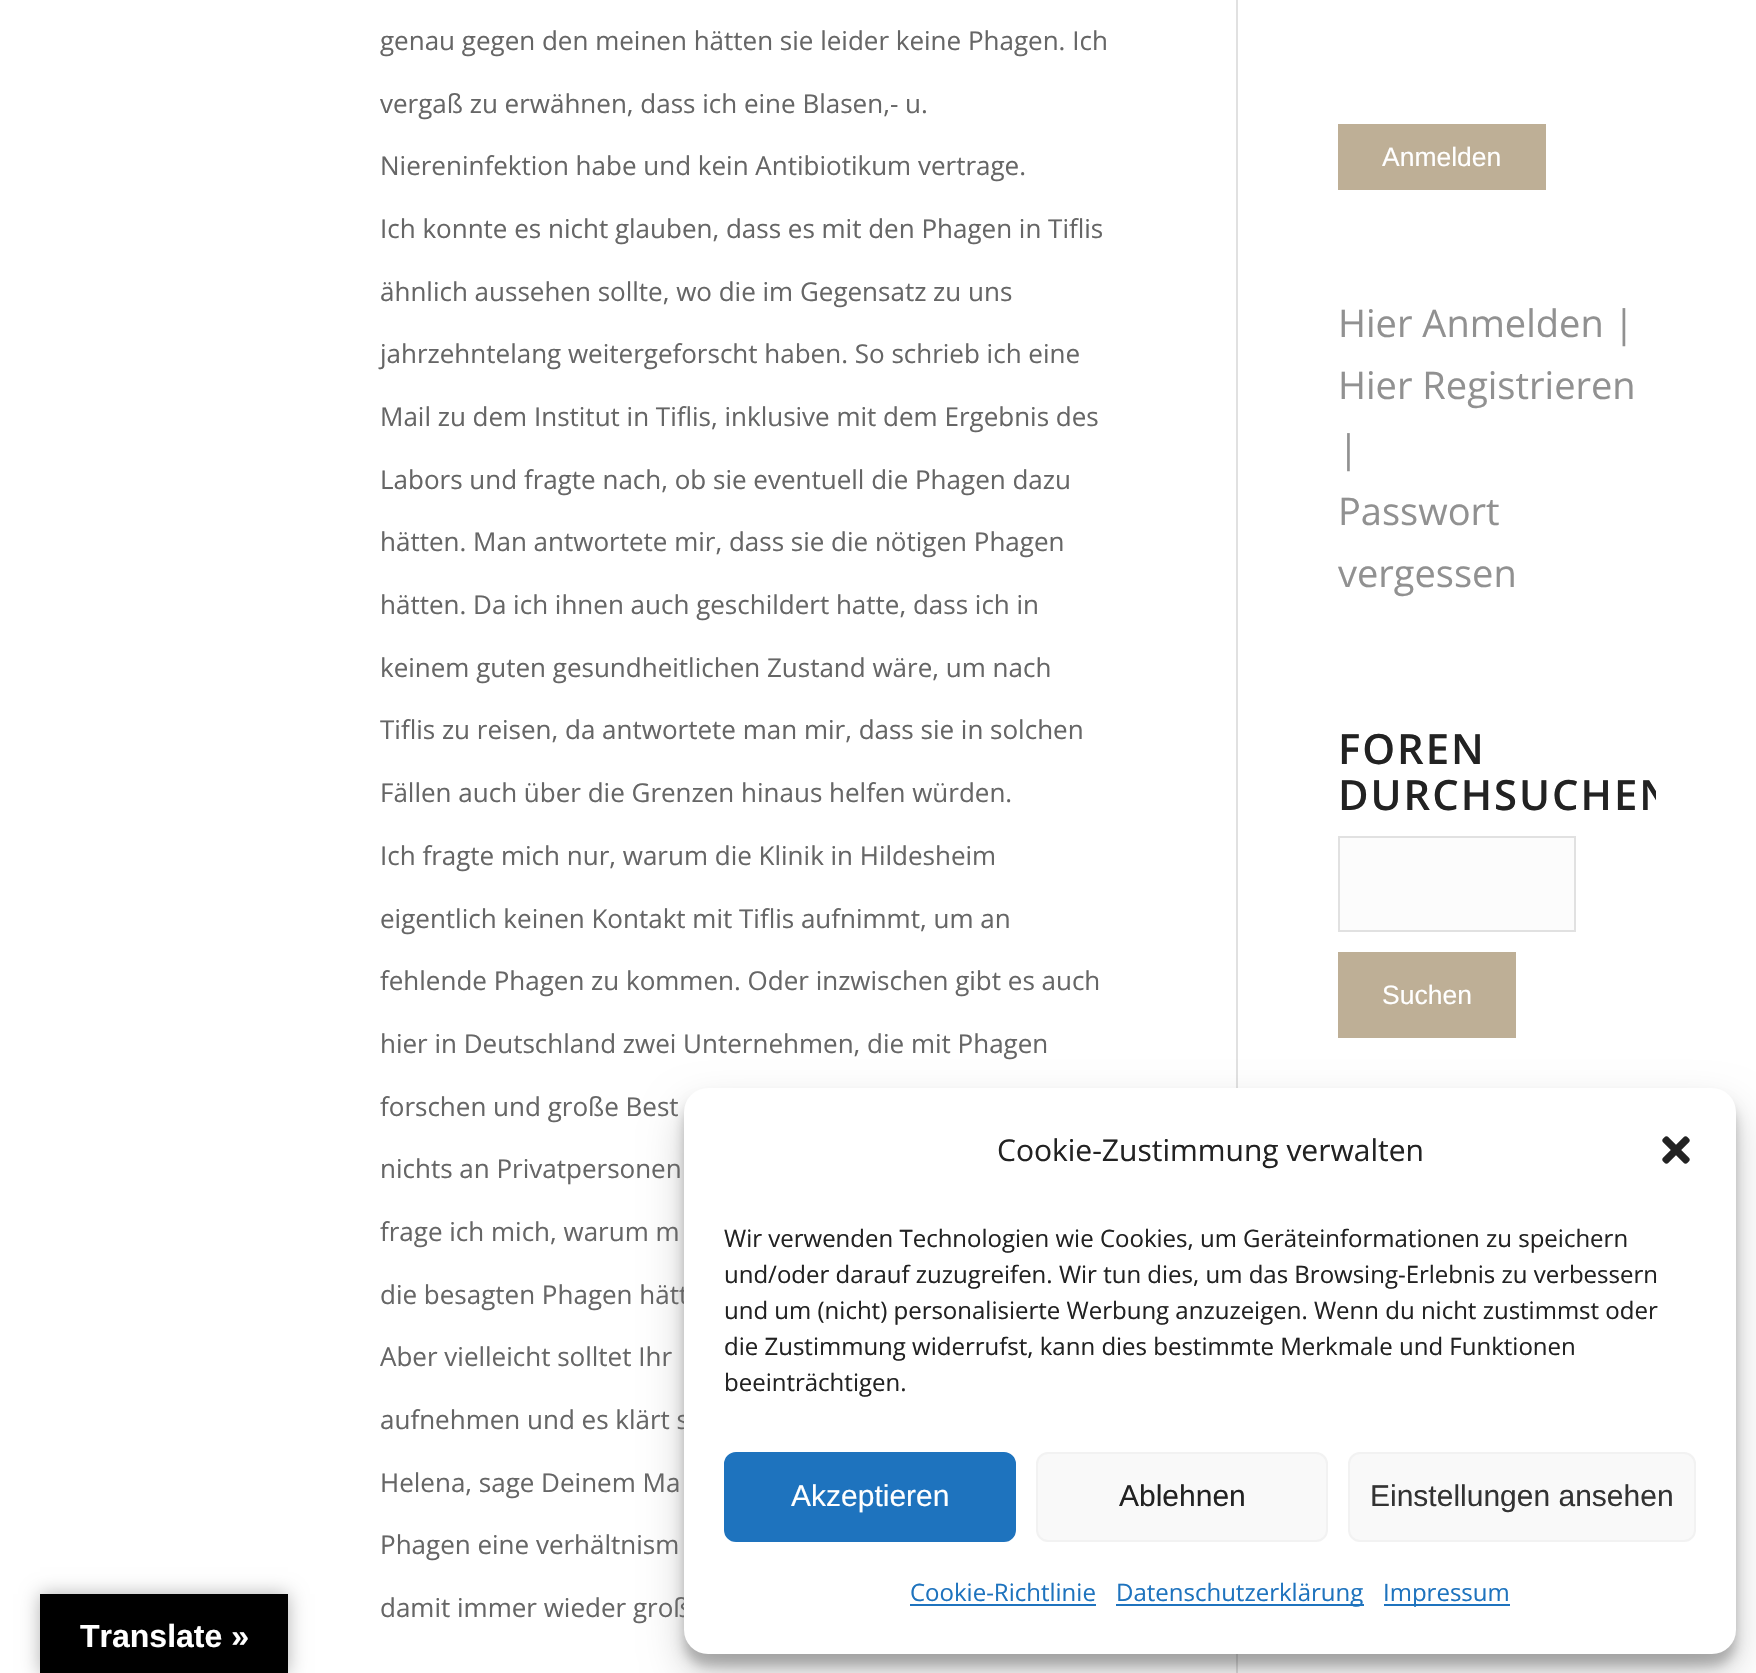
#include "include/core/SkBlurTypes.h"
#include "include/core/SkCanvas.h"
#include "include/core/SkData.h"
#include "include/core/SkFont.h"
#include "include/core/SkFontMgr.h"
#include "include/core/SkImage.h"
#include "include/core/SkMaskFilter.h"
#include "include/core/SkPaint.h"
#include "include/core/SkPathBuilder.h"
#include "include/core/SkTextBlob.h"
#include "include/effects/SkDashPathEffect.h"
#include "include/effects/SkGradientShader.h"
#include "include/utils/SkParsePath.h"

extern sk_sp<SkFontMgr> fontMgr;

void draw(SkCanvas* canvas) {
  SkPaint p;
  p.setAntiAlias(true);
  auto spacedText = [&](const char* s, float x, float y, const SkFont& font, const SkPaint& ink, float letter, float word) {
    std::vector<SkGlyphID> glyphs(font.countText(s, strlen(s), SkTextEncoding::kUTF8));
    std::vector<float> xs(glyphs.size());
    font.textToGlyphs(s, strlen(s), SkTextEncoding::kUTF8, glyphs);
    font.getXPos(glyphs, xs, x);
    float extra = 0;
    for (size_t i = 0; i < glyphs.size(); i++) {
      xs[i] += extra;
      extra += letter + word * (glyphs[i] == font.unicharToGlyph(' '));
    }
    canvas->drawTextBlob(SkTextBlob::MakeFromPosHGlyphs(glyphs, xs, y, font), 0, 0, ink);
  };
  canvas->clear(SK_ColorWHITE);
  p.setColor(SkColorSetRGB(225, 225, 225));
  canvas->drawRect(SkRect::MakeLTRB(1236, 0, 1238, 1673), p);
  p.setColor(SkColorSetRGB(190, 175, 150));
  canvas->drawRect(SkRect::MakeLTRB(1338, 124, 1546, 190), p);
  p.setColor(SkColorSetRGB(252, 252, 252));
  canvas->drawRect(SkRect::MakeLTRB(1339, 837, 1575, 931), p);
  p.setStyle(SkPaint::kStroke_Style);
  p.setStrokeWidth(2);
  p.setColor(SkColorSetRGB(225, 225, 225));
  canvas->drawRect(SkRect::MakeLTRB(1339, 837, 1575, 931), p);
  p.setStyle(SkPaint::kFill_Style);
  p.setColor(SkColorSetRGB(190, 175, 150));
  canvas->drawRect(SkRect::MakeLTRB(1338, 952, 1516, 1038), p);
  p.setColor(SkColorSetARGB(59, 0, 0, 0));
  p.setMaskFilter(SkMaskFilter::MakeBlur(kNormal_SkBlurStyle, 6));
  canvas->drawRoundRect(SkRect::MakeLTRB(684, 1100, 1736, 1666), 24, 24, p);
  p.setMaskFilter(nullptr);
  p.setColor(SkColorSetARGB(48, 0, 0, 0));
  p.setMaskFilter(SkMaskFilter::MakeBlur(kNormal_SkBlurStyle, 20));
  canvas->drawRoundRect(SkRect::MakeLTRB(684, 1108, 1736, 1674), 24, 24, p);
  p.setMaskFilter(nullptr);
  p.setColor(SkColorSetARGB(77, 0, 0, 0));
  p.setMaskFilter(SkMaskFilter::MakeBlur(kNormal_SkBlurStyle, 9));
  canvas->drawRect(SkRect::MakeLTRB(40, 1594, 288, 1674), p);
  p.setMaskFilter(nullptr);
  p.setColor(SK_ColorBLACK);
  canvas->drawRect(SkRect::MakeLTRB(40, 1594, 288, 1673), p);
  SkFont font1(fontMgr->matchFamilyStyle("Open Sans", SkFontStyle::Normal()), 26);
  font1.setSubpixel(true);
  p.setColor(SkColorSetRGB(102, 102, 102));
  canvas->drawString("genau gegen den meinen hätten sie leider keine Phagen. Ich", 380, 50, font1, p);
  canvas->drawString("vergaß zu erwähnen, dass ich eine Blasen,- u.", 380, 113, font1, p);
  canvas->drawString("Niereninfektion habe und kein Antibiotikum vertrage.", 380, 175, font1, p);
  canvas->drawString("Ich konnte es nicht glauben, dass es mit den Phagen in Tiflis", 380, 238, font1, p);
  canvas->drawString("ähnlich aussehen sollte, wo die im Gegensatz zu uns", 380, 301, font1, p);
  canvas->drawString("jahrzehntelang weitergeforscht haben. So schrieb ich eine", 380, 363, font1, p);
  canvas->drawString("Mail zu dem Institut in Tiflis, inklusive mit dem Ergebnis des", 380, 426, font1, p);
  canvas->drawString("Labors und fragte nach, ob sie eventuell die Phagen dazu", 380, 489, font1, p);
  canvas->drawString("hätten. Man antwortete mir, dass sie die nötigen Phagen", 380, 551, font1, p);
  canvas->drawString("hätten. Da ich ihnen auch geschildert hatte, dass ich in", 380, 614, font1, p);
  canvas->drawString("keinem guten gesundheitlichen Zustand wäre, um nach", 380, 677, font1, p);
  canvas->drawString("Tiflis zu reisen, da antwortete man mir, dass sie in solchen", 380, 739, font1, p);
  canvas->drawString("Fällen auch über die Grenzen hinaus helfen würden.", 380, 802, font1, p);
  canvas->drawString("Ich fragte mich nur, warum die Klinik in Hildesheim", 380, 865, font1, p);
  canvas->drawString("eigentlich keinen Kontakt mit Tiflis aufnimmt, um an", 380, 928, font1, p);
  canvas->drawString("fehlende Phagen zu kommen. Oder inzwischen gibt es auch", 380, 990, font1, p);
  canvas->drawString("hier in Deutschland zwei Unternehmen, die mit Phagen", 380, 1053, font1, p);
  canvas->drawString("forschen und große Best", 380, 1116, font1, p);
  canvas->drawString("nichts an Privatpersonen", 380, 1178, font1, p);
  canvas->drawString("frage ich mich, warum m", 380, 1241, font1, p);
  canvas->drawString("die besagten Phagen hätt", 380, 1304, font1, p);
  canvas->drawString("Aber vielleicht solltet Ihr", 380, 1366, font1, p);
  canvas->drawString("aufnehmen und es klärt s", 380, 1429, font1, p);
  canvas->drawString("Helena, sage Deinem Ma", 380, 1492, font1, p);
  canvas->drawString("Phagen eine verhältnism", 380, 1554, font1, p);
  canvas->drawString("damit immer wieder groß", 380, 1617, font1, p);
  SkFont font2(fontMgr->matchFamilyStyle("Liberation Sans", SkFontStyle::Normal()), 26.5f);
  font2.setSubpixel(true);
  p.setColor(SK_ColorWHITE);
  canvas->drawString("Anmelden", 1382, 166, font2, p);
  SkFont font3(fontMgr->matchFamilyStyle("Open Sans", SkFontStyle::Normal()), 38);
  font3.setSubpixel(true);
  p.setColor(SkColorSetRGB(145, 145, 145));
  canvas->drawString("Hier Anmelden |", 1338, 337, font3, p);
  canvas->drawString("Hier Registrieren", 1338, 399, font3, p);
  canvas->drawString("|", 1338, 462, font3, p);
  canvas->drawString("Passwort", 1338, 525, font3, p);
  canvas->drawString("vergessen", 1338, 587, font3, p);
  SkFont font4(fontMgr->matchFamilyStyle("Open Sans", SkFontStyle(600, SkFontStyle::kNormal_Width, SkFontStyle::kUpright_Slant)), 41.75f);
  font4.setSubpixel(true);
  p.setColor(SkColorSetRGB(34, 34, 34));
  spacedText("FOREN", 1338, 764, font4, p, 2, 0);
  canvas->save();
  canvas->clipRect(SkRect::MakeLTRB(1238, 0, 1656, 1240));
  spacedText("DURCHSUCHEN", 1338, 810, font4, p, 2, 0);
  canvas->restore();
  p.setColor(SK_ColorWHITE);
  canvas->drawString("Suchen", 1382, 1004, font2, p);
  canvas->drawRoundRect(SkRect::MakeLTRB(684, 1088, 1736, 1654), 24, 24, p);
  SkFont font5(fontMgr->matchFamilyStyle("Open Sans", SkFontStyle::Normal()), 30);
  font5.setSubpixel(true);
  p.setColor(SkColorSetRGB(34, 34, 34));
  canvas->drawString("Cookie-Zustimmung verwalten", 997, 1161, font5, p);
  canvas->drawImageRect(SkImages::DeferredFromEncodedData(SkData::MakeFromFileName("images/1.png")), SkRect::MakeLTRB(1662, 1136, 1690, 1164), SkSamplingOptions());
  SkFont font6(fontMgr->matchFamilyStyle("Open Sans", SkFontStyle::Normal()), 24);
  font6.setSubpixel(true);
  canvas->drawString("Wir verwenden Technologien wie Cookies, um Geräteinformationen zu speichern", 724, 1247, font6, p);
  canvas->drawString("und/oder darauf zuzugreifen. Wir tun dies, um das Browsing-Erlebnis zu verbessern", 724, 1283, font6, p);
  canvas->drawString("und um (nicht) personalisierte Werbung anzuzeigen. Wenn du nicht zustimmst oder", 724, 1319, font6, p);
  canvas->drawString("die Zustimmung widerrufst, kann dies bestimmte Merkmale und Funktionen", 724, 1355, font6, p);
  canvas->drawString("beeinträchtigen.", 724, 1391, font6, p);
  p.setColor(SkColorSetRGB(30, 115, 190));
  canvas->drawRoundRect(SkRect::MakeLTRB(725, 1453, 1015, 1541), 11, 11, p);
  p.setStyle(SkPaint::kStroke_Style);
  canvas->drawRoundRect(SkRect::MakeLTRB(725, 1453, 1015, 1541), 11, 11, p);
  SkFont font7(fontMgr->matchFamilyStyle("Liberation Sans", SkFontStyle::Normal()), 30);
  font7.setSubpixel(true);
  p.setStyle(SkPaint::kFill_Style);
  p.setColor(SK_ColorWHITE);
  canvas->drawString("Akzeptieren", 791, 1506, font7, p);
  p.setColor(SkColorSetRGB(249, 249, 249));
  canvas->drawRoundRect(SkRect::MakeLTRB(1037, 1453, 1327, 1541), 11, 11, p);
  p.setStyle(SkPaint::kStroke_Style);
  p.setColor(SkColorSetRGB(242, 242, 242));
  canvas->drawRoundRect(SkRect::MakeLTRB(1037, 1453, 1327, 1541), 11, 11, p);
  p.setStyle(SkPaint::kFill_Style);
  p.setColor(SkColorSetRGB(34, 34, 34));
  canvas->drawString("Ablehnen", 1119, 1506, font7, p);
  p.setColor(SkColorSetRGB(249, 249, 249));
  canvas->drawRoundRect(SkRect::MakeLTRB(1349, 1453, 1695, 1541), 11, 11, p);
  p.setStyle(SkPaint::kStroke_Style);
  p.setColor(SkColorSetRGB(242, 242, 242));
  canvas->drawRoundRect(SkRect::MakeLTRB(1349, 1453, 1695, 1541), 11, 11, p);
  p.setStyle(SkPaint::kFill_Style);
  p.setColor(SkColorSetRGB(51, 51, 51));
  canvas->drawString("Einstellungen ansehen", 1370, 1506, font7, p);
  p.setColor(SkColorSetRGB(30, 115, 190));
  canvas->drawString("Cookie-Richtlinie", 910, 1601, font6, p);
  canvas->drawRect(SkRect::MakeLTRB(910, 1604, 1096, 1606), p);
  canvas->drawRect(SkRect::MakeLTRB(1116, 1604, 1364, 1606), p);
  canvas->drawString("Datenschutzerklärung", 1116, 1601, font6, p);
  canvas->drawRect(SkRect::MakeLTRB(1384, 1604, 1510, 1606), p);
  canvas->drawString("Impressum", 1383, 1601, font6, p);
  SkFont font8(fontMgr->matchFamilyStyle("Liberation Sans", SkFontStyle::Bold()), 32);
  font8.setSubpixel(true);
  p.setColor(SK_ColorWHITE);
  canvas->drawString("Translate »", 80, 1647, font8, p);
}
